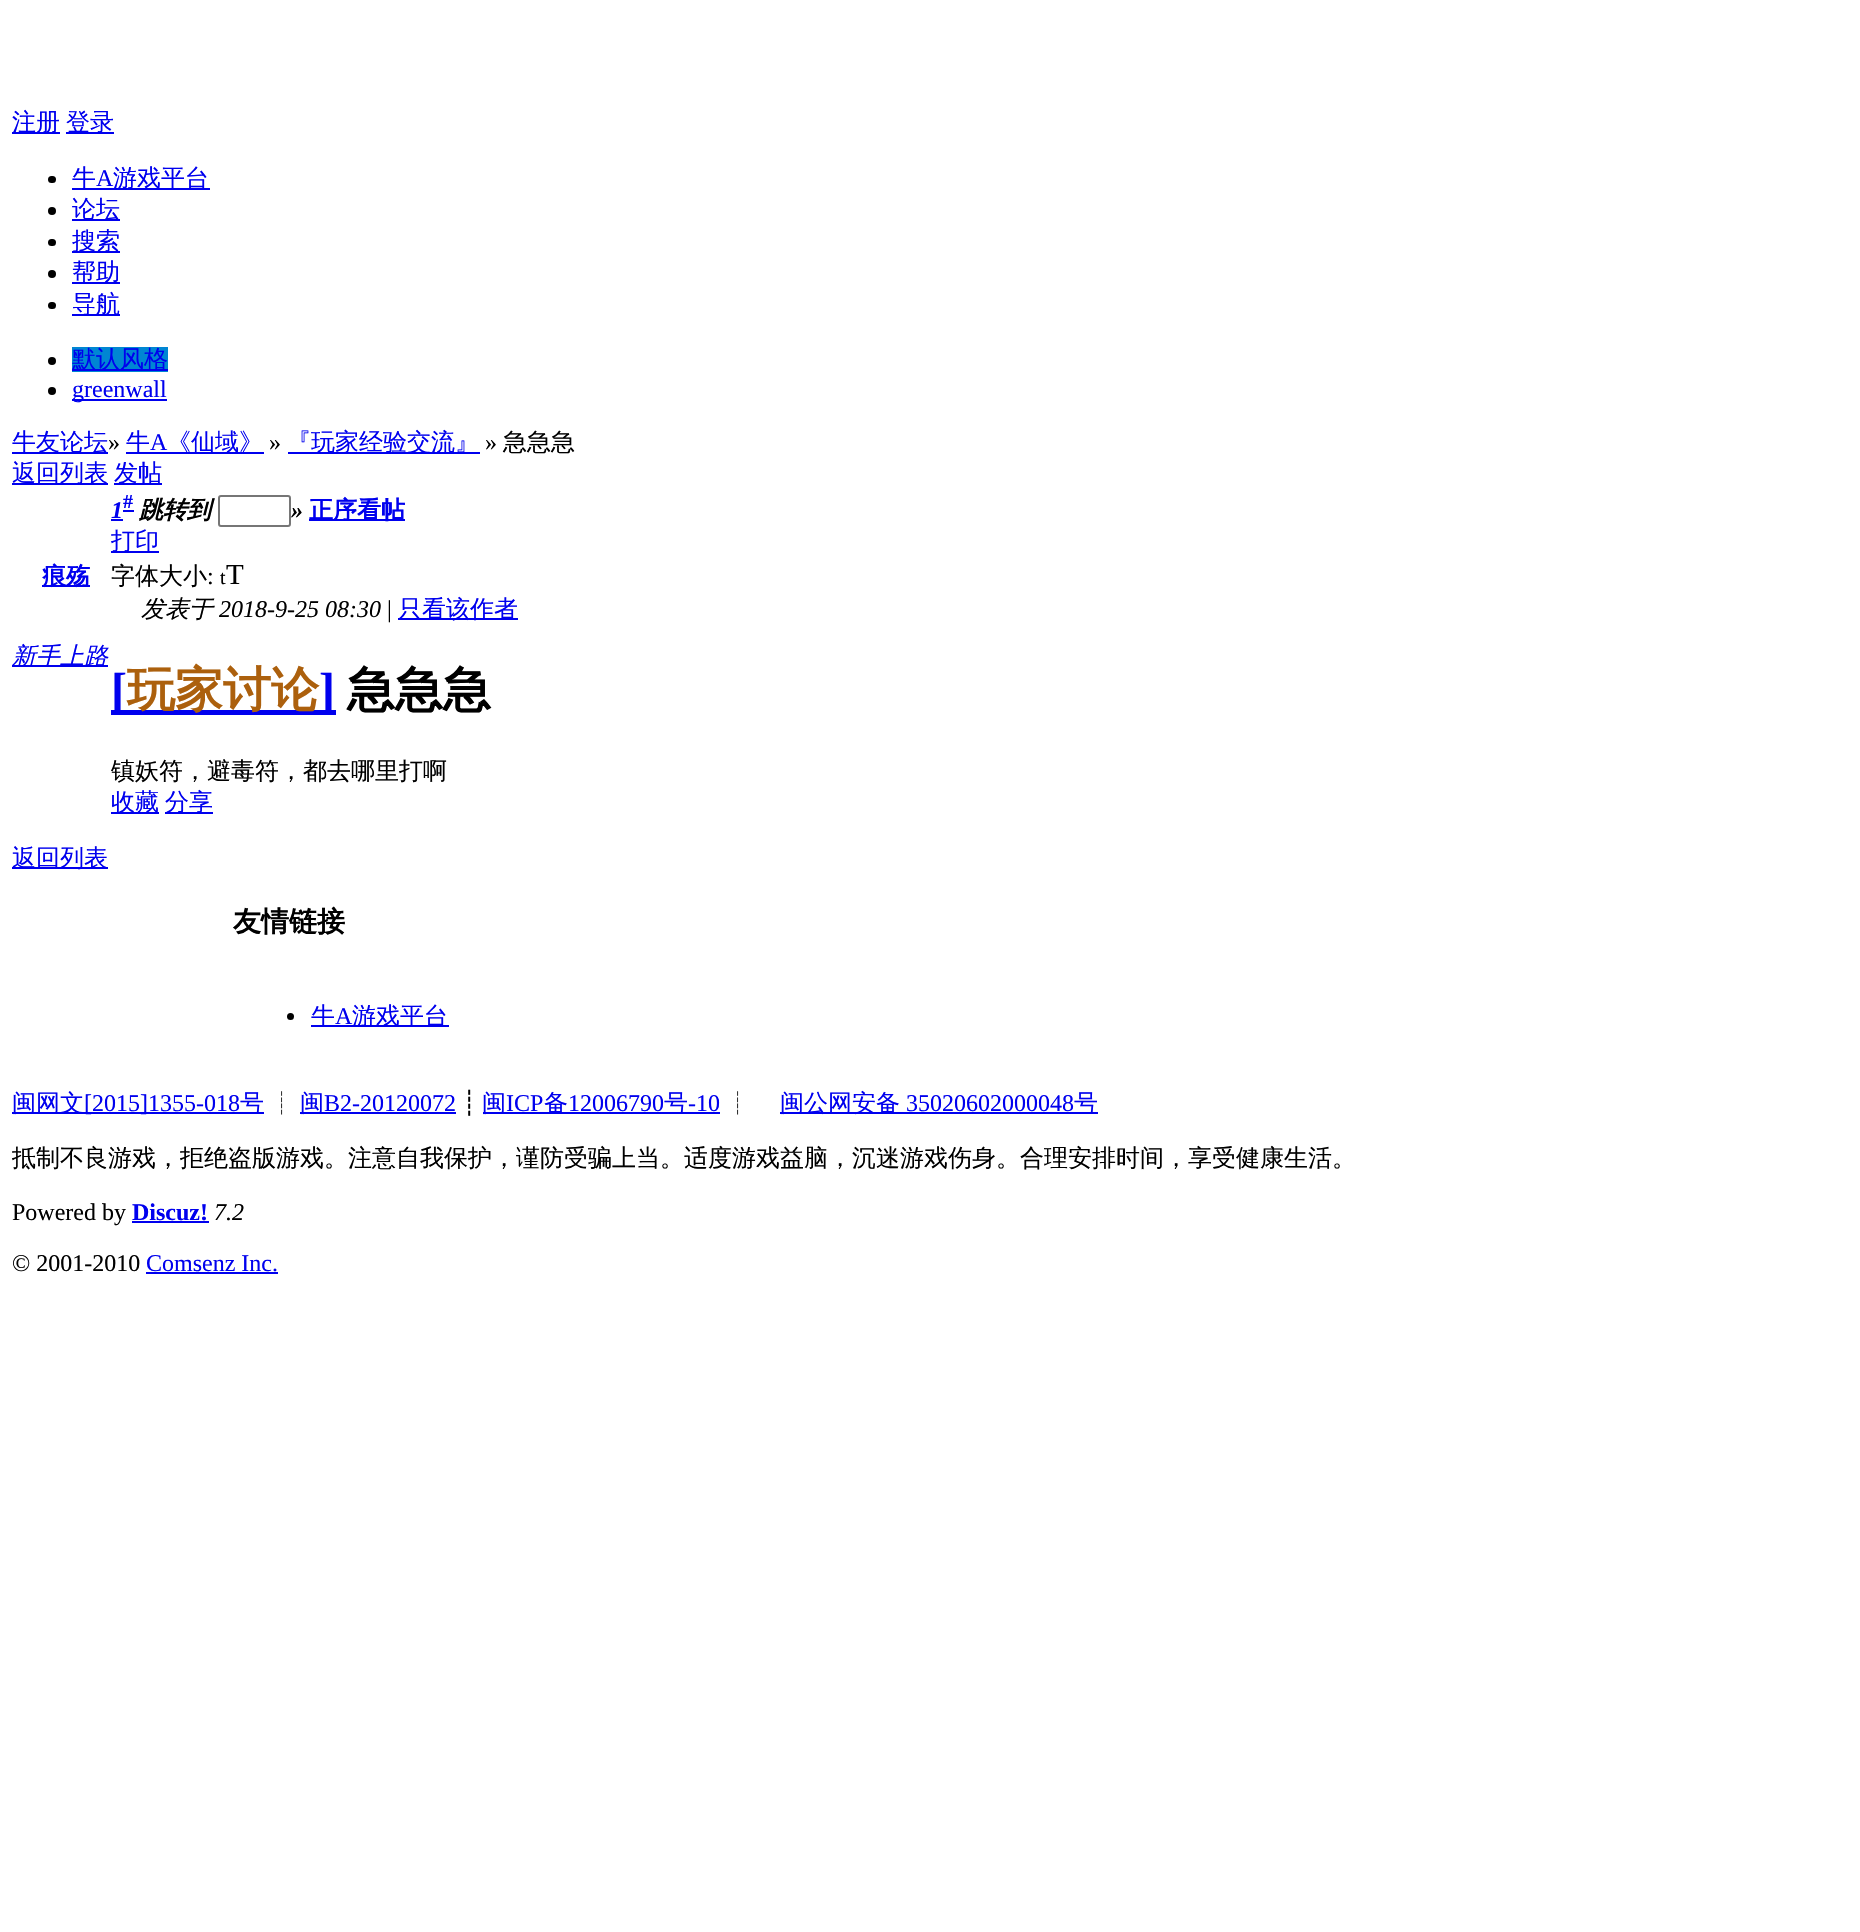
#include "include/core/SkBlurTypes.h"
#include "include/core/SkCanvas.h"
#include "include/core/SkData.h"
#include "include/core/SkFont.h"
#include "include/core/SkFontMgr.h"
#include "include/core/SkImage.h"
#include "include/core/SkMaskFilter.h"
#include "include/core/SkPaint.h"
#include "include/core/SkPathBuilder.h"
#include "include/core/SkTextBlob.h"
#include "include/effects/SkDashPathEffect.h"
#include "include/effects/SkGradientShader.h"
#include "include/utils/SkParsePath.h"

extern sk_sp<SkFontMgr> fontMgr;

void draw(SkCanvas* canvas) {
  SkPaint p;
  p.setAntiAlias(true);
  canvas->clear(SK_ColorWHITE);
  p.setColor(SkColorSetRGB(0, 0, 238));
  canvas->drawRect(SkRect::MakeLTRB(12, 132, 60, 134), p);
  canvas->drawRect(SkRect::MakeLTRB(66, 132, 114, 134), p);
  p.setColor(SK_ColorBLACK);
  canvas->drawRoundRect(SkRect::MakeLTRB(48, 176, 56, 183), 3.5f, 3.5f, p);
  p.setColor(SkColorSetRGB(0, 0, 238));
  canvas->drawRect(SkRect::MakeLTRB(72, 188, 210, 190), p);
  p.setColor(SK_ColorBLACK);
  canvas->drawCircle(52, 211, 4, p);
  p.setColor(SkColorSetRGB(0, 0, 238));
  canvas->drawRect(SkRect::MakeLTRB(72, 219, 120, 221), p);
  p.setColor(SK_ColorBLACK);
  canvas->drawRoundRect(SkRect::MakeLTRB(48, 239, 56, 246), 3.5f, 3.5f, p);
  p.setColor(SkColorSetRGB(0, 0, 238));
  canvas->drawRect(SkRect::MakeLTRB(72, 251, 120, 253), p);
  p.setColor(SK_ColorBLACK);
  canvas->drawCircle(52, 274, 4, p);
  p.setColor(SkColorSetRGB(0, 0, 238));
  canvas->drawRect(SkRect::MakeLTRB(72, 282, 120, 284), p);
  p.setColor(SK_ColorBLACK);
  canvas->drawRoundRect(SkRect::MakeLTRB(48, 302, 56, 309), 3.5f, 3.5f, p);
  p.setColor(SkColorSetRGB(0, 0, 238));
  canvas->drawRect(SkRect::MakeLTRB(72, 314, 120, 316), p);
  p.setColor(SK_ColorBLACK);
  canvas->drawCircle(52, 361, 4, p);
  p.setColor(SkColorSetRGB(0, 134, 211));
  canvas->drawRect(SkRect::MakeLTRB(72, 347, 168, 372), p);
  p.setColor(SkColorSetRGB(0, 0, 238));
  canvas->drawRect(SkRect::MakeLTRB(72, 369, 168, 371), p);
  p.setColor(SK_ColorBLACK);
  canvas->drawCircle(52, 391, 4, p);
  p.setColor(SkColorSetRGB(0, 0, 238));
  canvas->drawRect(SkRect::MakeLTRB(72, 399, 167, 401), p);
  canvas->drawRect(SkRect::MakeLTRB(12, 452, 108, 454), p);
  canvas->drawRect(SkRect::MakeLTRB(126, 452, 264, 454), p);
  canvas->drawRect(SkRect::MakeLTRB(288, 452, 480, 454), p);
  canvas->drawRect(SkRect::MakeLTRB(12, 483, 108, 485), p);
  canvas->drawRect(SkRect::MakeLTRB(114, 483, 162, 485), p);
  canvas->drawRect(SkRect::MakeLTRB(42, 585, 90, 587), p);
  canvas->drawRect(SkRect::MakeLTRB(12, 665, 108, 667), p);
  canvas->drawRect(SkRect::MakeLTRB(111, 519, 123, 521), p);
  canvas->drawRect(SkRect::MakeLTRB(123, 510, 134, 512), p);
  p.setStyle(SkPaint::kStroke_Style);
  p.setStrokeWidth(2);
  p.setColor(SkColorSetRGB(118, 118, 118));
  canvas->drawRoundRect(SkRect::MakeLTRB(219, 496, 290, 526), 2, 2, p);
  p.setStyle(SkPaint::kFill_Style);
  p.setColor(SkColorSetRGB(0, 0, 238));
  canvas->drawRect(SkRect::MakeLTRB(309, 519, 405, 521), p);
  canvas->drawRect(SkRect::MakeLTRB(111, 551, 159, 553), p);
  canvas->drawRect(SkRect::MakeLTRB(398, 618, 518, 620), p);
  canvas->drawRect(SkRect::MakeLTRB(111, 710, 336, 715), p);
  canvas->drawRect(SkRect::MakeLTRB(111, 812, 159, 814), p);
  canvas->drawRect(SkRect::MakeLTRB(165, 812, 213, 814), p);
  canvas->drawRect(SkRect::MakeLTRB(12, 867, 108, 869), p);
  p.setColor(SK_ColorBLACK);
  canvas->drawCircle(290.5f, 1016.5f, 3.5f, p);
  p.setColor(SkColorSetRGB(0, 0, 238));
  canvas->drawRect(SkRect::MakeLTRB(311, 1025, 449, 1027), p);
  canvas->drawRect(SkRect::MakeLTRB(12, 1112, 264, 1114), p);
  canvas->drawRect(SkRect::MakeLTRB(300, 1112, 456, 1114), p);
  canvas->drawRect(SkRect::MakeLTRB(483, 1112, 720, 1114), p);
  canvas->drawRect(SkRect::MakeLTRB(780, 1112, 1098, 1114), p);
  canvas->drawRect(SkRect::MakeLTRB(132, 1221, 209, 1223), p);
  canvas->drawRect(SkRect::MakeLTRB(146, 1272, 278, 1274), p);
  SkFont font1(fontMgr->matchFamilyStyle("WenQuanYi Zen Hei", SkFontStyle(500, SkFontStyle::kNormal_Width, SkFontStyle::kUpright_Slant)), 24);
  font1.setSubpixel(true);
  canvas->drawString("注册", 12, 130, font1, p);
  canvas->drawString("登录", 66, 130, font1, p);
  canvas->drawString("牛", 72, 186, font1, p);
  SkFont font2(fontMgr->matchFamilyStyle("Liberation Serif", SkFontStyle::Normal()), 24);
  font2.setSubpixel(true);
  canvas->drawString("A", 96, 186, font2, p);
  canvas->drawString("游戏平台", 113, 186, font1, p);
  canvas->drawString("论坛", 72, 217, font1, p);
  canvas->drawString("搜索", 72, 249, font1, p);
  canvas->drawString("帮助", 72, 280, font1, p);
  canvas->drawString("导航", 72, 312, font1, p);
  canvas->drawString("默认风格", 72, 367, font1, p);
  canvas->drawString("greenwall", 72, 397, font2, p);
  canvas->drawString("牛友论坛", 12, 450, font1, p);
  p.setColor(SK_ColorBLACK);
  canvas->drawString("»", 108, 450, font2, p);
  p.setColor(SkColorSetRGB(0, 0, 238));
  canvas->drawString("牛", 126, 450, font1, p);
  canvas->drawString("A", 150, 450, font2, p);
  canvas->drawString("《仙域》", 167, 450, font1, p);
  p.setColor(SK_ColorBLACK);
  canvas->drawString("»", 269, 450, font2, p);
  p.setColor(SkColorSetRGB(0, 0, 238));
  canvas->drawString("『玩家经验交流』", 287, 450, font1, p);
  p.setColor(SK_ColorBLACK);
  canvas->drawString("»", 485, 450, font2, p);
  canvas->drawString("急急急", 503, 450, font1, p);
  p.setColor(SkColorSetRGB(0, 0, 238));
  canvas->drawString("返回列表", 12, 481, font1, p);
  canvas->drawString("发帖", 114, 481, font1, p);
  SkFont font3(fontMgr->matchFamilyStyle("WenQuanYi Zen Hei", SkFontStyle::Bold()), 24);
  font3.setSubpixel(true);
  canvas->drawString("痕殇", 42, 584, font3, p);
  SkFont font4(fontMgr->matchFamilyStyle("WenQuanYi Zen Hei", SkFontStyle(500, SkFontStyle::kNormal_Width, SkFontStyle::kItalic_Slant)), 24);
  font4.setSubpixel(true);
  canvas->drawString("新手上路", 12, 664, font4, p);
  SkFont font5(fontMgr->matchFamilyStyle("Liberation Serif", SkFontStyle::BoldItalic()), 24);
  font5.setSubpixel(true);
  canvas->drawString("1", 111, 518, font5, p);
  SkFont font6(fontMgr->matchFamilyStyle("Liberation Serif", SkFontStyle::Bold()), 20);
  font6.setSubpixel(true);
  canvas->drawString("#", 123, 508, font6, p);
  SkFont font7(fontMgr->matchFamilyStyle("WenQuanYi Zen Hei", SkFontStyle::BoldItalic()), 24);
  font7.setSubpixel(true);
  p.setColor(SK_ColorBLACK);
  canvas->drawString("跳转到", 139, 518, font7, p);
  canvas->drawString("»", 291, 518, font5, p);
  p.setColor(SkColorSetRGB(0, 0, 238));
  canvas->drawString("正序看帖", 309, 518, font3, p);
  canvas->drawString("打印", 111, 549, font1, p);
  p.setColor(SK_ColorBLACK);
  canvas->drawString("字体大小", 111, 584, font1, p);
  canvas->drawString(":", 207, 584, font2, p);
  SkFont font8(fontMgr->matchFamilyStyle("Liberation Serif", SkFontStyle::Normal()), 20);
  font8.setSubpixel(true);
  canvas->drawString("t", 220, 584, font8, p);
  SkFont font9(fontMgr->matchFamilyStyle("Liberation Serif", SkFontStyle::Normal()), 29);
  font9.setSubpixel(true);
  canvas->drawString("T", 226, 584, font9, p);
  canvas->drawString("发表于", 141, 617, font4, p);
  SkFont font10(fontMgr->matchFamilyStyle("Liberation Serif", SkFontStyle::Italic()), 24);
  font10.setSubpixel(true);
  canvas->drawString("2018-9-25 08:30", 219, 617, font10, p);
  canvas->drawString("|", 387, 617, font2, p);
  p.setColor(SkColorSetRGB(0, 0, 238));
  canvas->drawString("只看该作者", 398, 617, font1, p);
  SkFont font11(fontMgr->matchFamilyStyle("Liberation Serif", SkFontStyle::Bold()), 48);
  font11.setSubpixel(true);
  canvas->drawString("[", 111, 706, font11, p);
  SkFont font12(fontMgr->matchFamilyStyle("WenQuanYi Zen Hei", SkFontStyle::Bold()), 48);
  font12.setSubpixel(true);
  p.setColor(SkColorSetRGB(172, 96, 13));
  canvas->drawString("玩家讨论", 127, 706, font12, p);
  p.setColor(SkColorSetRGB(0, 0, 238));
  canvas->drawString("]", 319, 706, font11, p);
  p.setColor(SK_ColorBLACK);
  canvas->drawString("急急急", 347, 706, font12, p);
  canvas->drawString("镇妖符，避毒符，都去哪里打啊", 111, 779, font1, p);
  p.setColor(SkColorSetRGB(0, 0, 238));
  canvas->drawString("收藏", 111, 810, font1, p);
  canvas->drawString("分享", 165, 810, font1, p);
  canvas->drawString("返回列表", 12, 866, font1, p);
  SkFont font13(fontMgr->matchFamilyStyle("WenQuanYi Zen Hei", SkFontStyle::Bold()), 28);
  font13.setSubpixel(true);
  p.setColor(SK_ColorBLACK);
  canvas->drawString("友情链接", 233, 931, font13, p);
  p.setColor(SkColorSetRGB(0, 0, 238));
  canvas->drawString("牛", 311, 1024, font1, p);
  canvas->drawString("A", 335, 1024, font2, p);
  canvas->drawString("游戏平台", 352, 1024, font1, p);
  canvas->drawString("闽网文", 12, 1111, font1, p);
  canvas->drawString("[2015]1355-018", 84, 1111, font2, p);
  canvas->drawString("号", 240, 1111, font1, p);
  p.setColor(SK_ColorBLACK);
  canvas->drawString("┊", 270, 1111, font1, p);
  p.setColor(SkColorSetRGB(0, 0, 238));
  canvas->drawString("闽", 300, 1111, font1, p);
  canvas->drawString("B2-20120072", 324, 1111, font2, p);
  SkFont font14(fontMgr->matchFamilyStyle("DejaVu Sans", SkFontStyle::Normal()), 24);
  font14.setSubpixel(true);
  p.setColor(SK_ColorBLACK);
  canvas->drawString("┊", 462, 1111, font14, p);
  p.setColor(SkColorSetRGB(0, 0, 238));
  canvas->drawString("闽", 482, 1111, font1, p);
  canvas->drawString("ICP", 506, 1111, font2, p);
  canvas->drawString("备", 544, 1111, font1, p);
  canvas->drawString("12006790", 568, 1111, font2, p);
  canvas->drawString("号", 664, 1111, font1, p);
  canvas->drawString("-10", 688, 1111, font2, p);
  p.setColor(SK_ColorBLACK);
  canvas->drawString("┊", 726, 1111, font1, p);
  p.setColor(SkColorSetRGB(0, 0, 238));
  canvas->drawString("闽公网安备", 780, 1111, font1, p);
  canvas->drawString("35020602000048", 906, 1111, font2, p);
  canvas->drawString("号", 1074, 1111, font1, p);
  p.setColor(SK_ColorBLACK);
  canvas->drawString("抵制不良游戏，拒绝盗版游戏。注意自我保护，谨防受骗上当。适度游戏益脑，沉迷游戏伤身。合理安排时间，享受健康生活。", 12, 1166, font1, p);
  canvas->drawString("Powered by", 12, 1220, font2, p);
  SkFont font15(fontMgr->matchFamilyStyle("Liberation Serif", SkFontStyle::Bold()), 24);
  font15.setSubpixel(true);
  p.setColor(SkColorSetRGB(0, 0, 238));
  canvas->drawString("Discuz!", 132, 1220, font15, p);
  p.setColor(SK_ColorBLACK);
  canvas->drawString("7.2", 214, 1220, font10, p);
  canvas->drawString("© 2001-2010", 12, 1271, font2, p);
  p.setColor(SkColorSetRGB(0, 0, 238));
  canvas->drawString("Comsenz Inc.", 146, 1271, font2, p);
}
